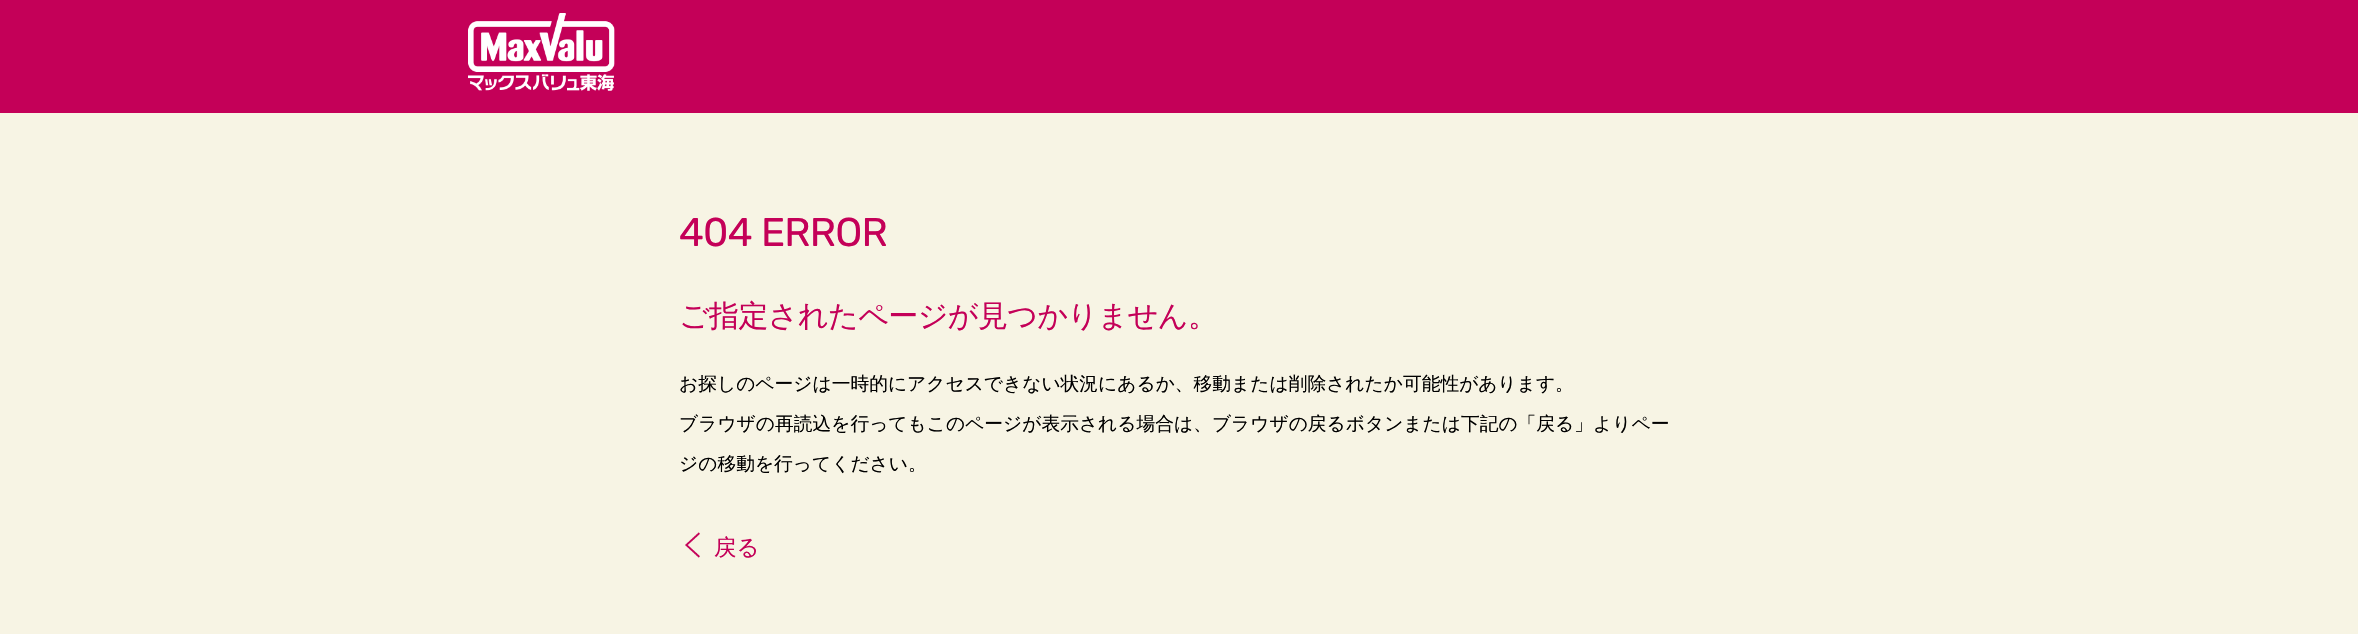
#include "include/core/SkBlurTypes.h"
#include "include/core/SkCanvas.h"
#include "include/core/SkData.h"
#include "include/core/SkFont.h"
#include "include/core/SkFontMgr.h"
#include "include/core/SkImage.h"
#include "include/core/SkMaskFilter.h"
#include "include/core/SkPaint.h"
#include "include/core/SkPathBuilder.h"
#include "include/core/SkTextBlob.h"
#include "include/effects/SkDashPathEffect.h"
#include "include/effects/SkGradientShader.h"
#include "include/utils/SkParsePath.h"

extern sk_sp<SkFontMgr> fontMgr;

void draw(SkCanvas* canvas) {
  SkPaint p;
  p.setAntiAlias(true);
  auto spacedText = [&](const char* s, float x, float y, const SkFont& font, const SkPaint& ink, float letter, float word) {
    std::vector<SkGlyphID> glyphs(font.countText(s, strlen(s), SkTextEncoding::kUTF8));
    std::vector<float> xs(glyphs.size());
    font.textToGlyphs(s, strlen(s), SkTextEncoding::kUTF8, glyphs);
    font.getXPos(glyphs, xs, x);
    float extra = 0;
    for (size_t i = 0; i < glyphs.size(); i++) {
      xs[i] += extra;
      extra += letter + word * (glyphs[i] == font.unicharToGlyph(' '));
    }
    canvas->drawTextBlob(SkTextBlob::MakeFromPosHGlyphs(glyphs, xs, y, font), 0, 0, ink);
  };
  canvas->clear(SkColorSetRGB(247, 244, 228));
  p.setColor(SkColorSetRGB(196, 0, 88));
  canvas->drawRect(SkRect::MakeLTRB(0, 0, 2358, 113), p);
  canvas->drawImageRect(SkImages::DeferredFromEncodedData(SkData::MakeFromFileName("images/1.png")), SkRect::MakeLTRB(468, 13, 615, 91), SkSamplingOptions());
  canvas->drawImageRect(SkImages::DeferredFromEncodedData(SkData::MakeFromFileName("images/2.png")), SkRect::MakeLTRB(685, 532, 700, 558), SkSamplingOptions());
  SkFont font1(fontMgr->matchFamilyStyle("Rubik", SkFontStyle::Normal()), 40);
  font1.setSubpixel(true);
  spacedText("404 ERROR", 679, 246, font1, p, -0.75f, 0);
  SkFont font2(fontMgr->matchFamilyStyle("WenQuanYi Zen Hei", SkFontStyle(500, SkFontStyle::kNormal_Width, SkFontStyle::kUpright_Slant)), 30);
  font2.setSubpixel(true);
  spacedText("ご指定されたページが見つかりません。", 679, 326, font2, p, -0.6f, 0);
  SkFont font3(fontMgr->matchFamilyStyle("WenQuanYi Zen Hei", SkFontStyle(500, SkFontStyle::kNormal_Width, SkFontStyle::kUpright_Slant)), 18.75f);
  font3.setSubpixel(true);
  p.setColor(SK_ColorBLACK);
  canvas->drawString("お探しのページは一時的にアクセスできない状況にあるか、移動または削除されたか可能性があります。", 679, 390, font3, p);
  canvas->drawString("ブラウザの再読込を行ってもこのページが表示される場合は、ブラウザの戻るボタンまたは下記の「戻る」よりペー", 679, 430, font3, p);
  canvas->drawString("ジの移動を行ってください。", 679, 470, font3, p);
  SkFont font4(fontMgr->matchFamilyStyle("WenQuanYi Zen Hei", SkFontStyle(500, SkFontStyle::kNormal_Width, SkFontStyle::kUpright_Slant)), 22.5f);
  font4.setSubpixel(true);
  p.setColor(SkColorSetRGB(196, 0, 88));
  canvas->drawString("戻る", 714, 555, font4, p);
}
